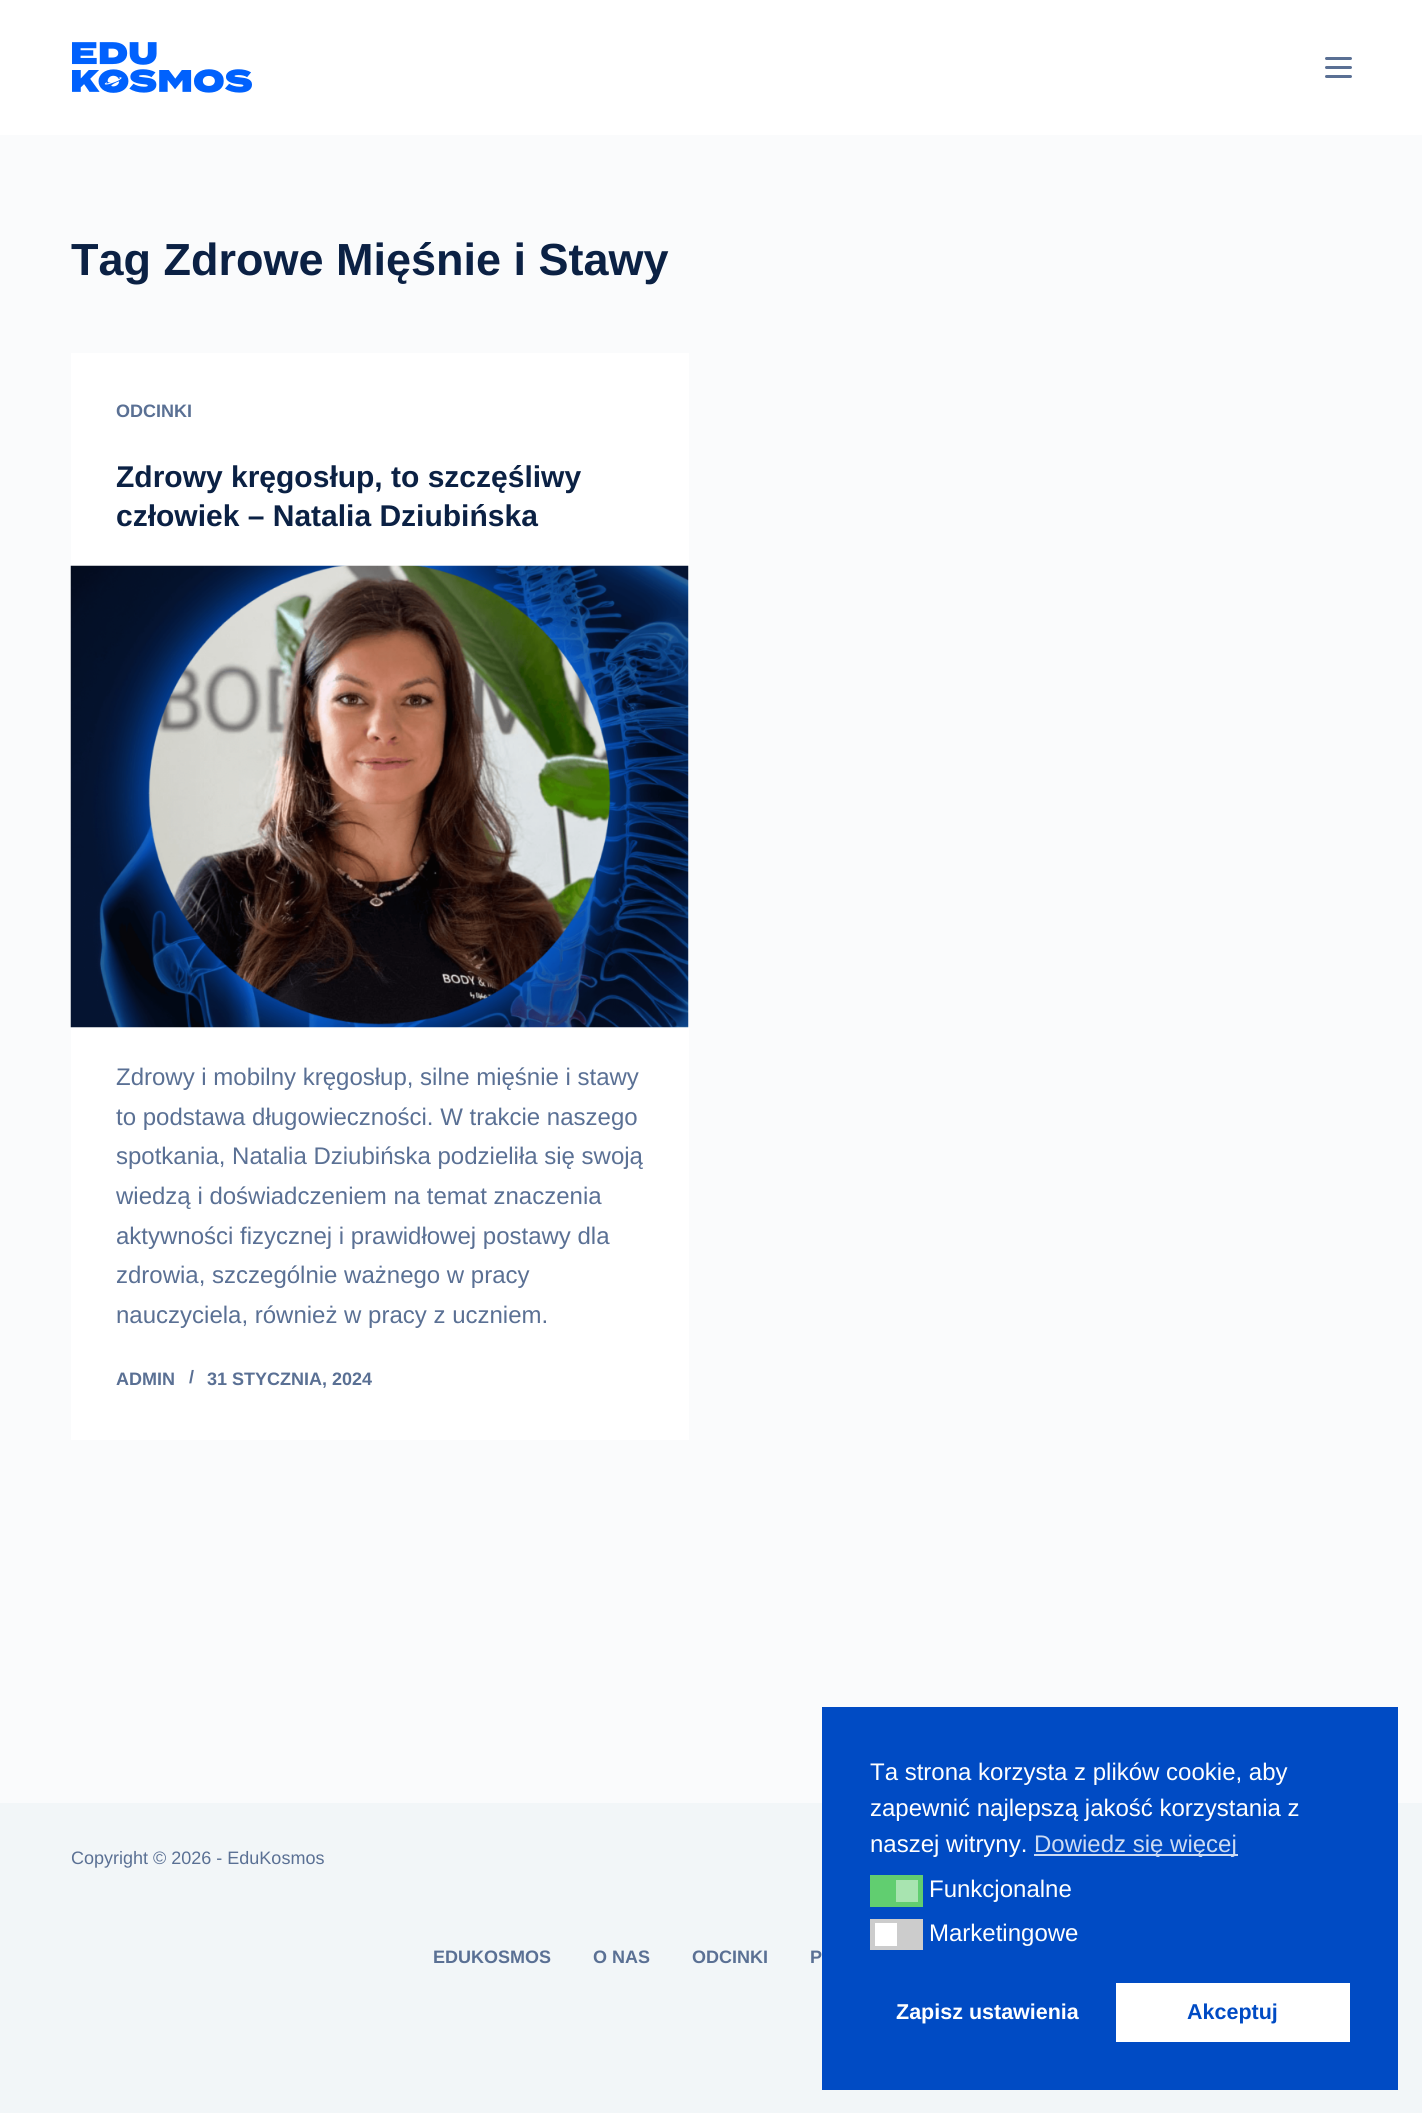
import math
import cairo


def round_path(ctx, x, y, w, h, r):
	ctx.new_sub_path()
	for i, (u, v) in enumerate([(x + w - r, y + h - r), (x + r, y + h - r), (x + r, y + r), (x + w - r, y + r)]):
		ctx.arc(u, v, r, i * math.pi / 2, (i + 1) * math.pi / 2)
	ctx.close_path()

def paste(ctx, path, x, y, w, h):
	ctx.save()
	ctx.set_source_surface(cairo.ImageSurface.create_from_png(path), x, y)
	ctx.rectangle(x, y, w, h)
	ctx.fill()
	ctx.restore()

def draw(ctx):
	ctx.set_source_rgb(0.98, 0.984, 0.988)
	ctx.paint()
	ctx.set_source_rgb(1, 1, 1)
	ctx.rectangle(0, 0, 1422, 135)
	ctx.fill()
	paste(ctx, 'media/1.png', 72, 42, 180, 51)
	ctx.set_source_rgb(0.353, 0.439, 0.58)
	round_path(ctx, 1325, 57, 27, 3, 1.5)
	ctx.fill()
	round_path(ctx, 1325, 66, 27, 3, 1.5)
	ctx.fill()
	round_path(ctx, 1325, 75, 27, 3, 1.5)
	ctx.fill()
	ctx.select_font_face('Liberation Sans', cairo.FONT_SLANT_NORMAL, cairo.FONT_WEIGHT_BOLD)
	ctx.set_font_size(45)
	ctx.set_source_rgb(0.043, 0.129, 0.267)
	ctx.move_to(71, 275)
	ctx.show_text('Tag Zdrowe Mięśnie i Stawy')
	ctx.set_source_rgb(1, 1, 1)
	ctx.rectangle(71, 353, 618, 1087)
	ctx.fill()
	ctx.set_font_size(18)
	ctx.set_source_rgb(0.353, 0.439, 0.58)
	ctx.move_to(116, 417)
	ctx.show_text('ODCINKI')
	ctx.set_font_size(30)
	ctx.set_source_rgb(0.043, 0.129, 0.267)
	ctx.move_to(116, 487)
	ctx.show_text('Zdrowy kręgosłup, to szczęśliwy')
	ctx.move_to(116, 526)
	ctx.show_text('człowiek – Natalia Dziubińska')
	paste(ctx, 'media/2.png', 70, 565, 619, 463)
	ctx.select_font_face('Liberation Sans')
	ctx.set_font_size(24)
	ctx.set_source_rgb(0.353, 0.439, 0.58)
	for x, y, s in [
		(116, 1085, 'Zdrowy i mobilny kręgosłup, silne mięśnie i stawy'),
		(116, 1125, 'to podstawa długowieczności. W trakcie naszego'),
		(116, 1164, 'spotkania, Natalia Dziubińska podzieliła się swoją'),
		(116, 1204, 'wiedzą i doświadczeniem na temat znaczenia'),
		(116, 1244, 'aktywności fizycznej i prawidłowej postawy dla'),
		(116, 1283, 'zdrowia, szczególnie ważnego w pracy'),
		(116, 1323, 'nauczyciela, również w pracy z uczniem.'),
	]:
		ctx.move_to(x, y)
		ctx.show_text(s)
	ctx.select_font_face('Liberation Sans', cairo.FONT_SLANT_NORMAL, cairo.FONT_WEIGHT_BOLD)
	ctx.set_font_size(18)
	for x, y, s in [
		(116, 1385, 'ADMIN'),
		(189, 1383, '/'),
		(207, 1385, '31 STYCZNIA, 2024'),
	]:
		ctx.move_to(x, y)
		ctx.show_text(s)
	ctx.set_source_rgb(0.949, 0.961, 0.969)
	ctx.rectangle(0, 1803, 1422, 310)
	ctx.fill()
	ctx.select_font_face('Liberation Sans')
	ctx.set_source_rgb(0.353, 0.439, 0.58)
	ctx.move_to(71, 1864)
	ctx.show_text('Copyright © 2026 - EduKosmos')
	ctx.select_font_face('Liberation Sans', cairo.FONT_SLANT_NORMAL, cairo.FONT_WEIGHT_BOLD)
	for x, y, s in [
		(433, 1963, 'EDUKOSMOS'),
		(593, 1963, 'O NAS'),
		(692, 1963, 'ODCINKI'),
		(810, 1963, 'P'),
	]:
		ctx.move_to(x, y)
		ctx.show_text(s)
	ctx.set_source_rgb(0, 0.294, 0.769)
	ctx.rectangle(822, 1707, 576, 383)
	ctx.fill()
	ctx.select_font_face('Liberation Sans')
	ctx.set_font_size(24)
	ctx.set_source_rgb(1, 1, 1)
	for x, y, s in [
		(870, 1780, 'Ta strona korzysta z plików cookie, aby'),
		(870, 1816, 'zapewnić najlepszą jakość korzystania z'),
		(870, 1852, 'naszej witryny.'),
	]:
		ctx.move_to(x, y)
		ctx.show_text(s)
	ctx.set_source_rgb(0.8, 0.859, 0.953)
	ctx.rectangle(1034, 1854, 204, 2)
	ctx.fill()
	ctx.move_to(1034, 1852)
	ctx.show_text('Dowiedz się więcej')
	ctx.set_source_rgb(0.38, 0.808, 0.439)
	ctx.rectangle(870, 1875, 53, 32)
	ctx.fill()
	ctx.set_source_rgb(0.659, 0.894, 0.69)
	ctx.rectangle(896, 1880, 22, 22)
	ctx.fill()
	ctx.set_source_rgb(1, 1, 1)
	ctx.move_to(929, 1897)
	ctx.show_text('Funkcjonalne')
	ctx.set_source_rgb(0.8, 0.8, 0.8)
	ctx.rectangle(870, 1919, 53, 31)
	ctx.fill()
	ctx.set_source_rgb(1, 1, 1)
	ctx.rectangle(875, 1923, 22, 23)
	ctx.fill()
	ctx.move_to(929, 1941)
	ctx.show_text('Marketingowe')
	ctx.select_font_face('Liberation Sans', cairo.FONT_SLANT_NORMAL, cairo.FONT_WEIGHT_BOLD)
	ctx.set_font_size(21.5)
	ctx.move_to(896, 2019)
	ctx.show_text('Zapisz ustawienia')
	ctx.rectangle(1116, 1983, 234, 59)
	ctx.fill()
	ctx.set_source_rgb(0, 0.294, 0.769)
	ctx.move_to(1187, 2019)
	ctx.show_text('Akceptuj')


surface = cairo.ImageSurface(cairo.FORMAT_RGB24, 1422, 2113)
ctx = cairo.Context(surface)
options = cairo.FontOptions()
options.set_hint_metrics(cairo.HINT_METRICS_OFF)
options.set_hint_style(cairo.HINT_STYLE_NONE)
ctx.set_font_options(options)
ctx.set_miter_limit(4)
draw(ctx)
surface.write_to_png('image.png')
